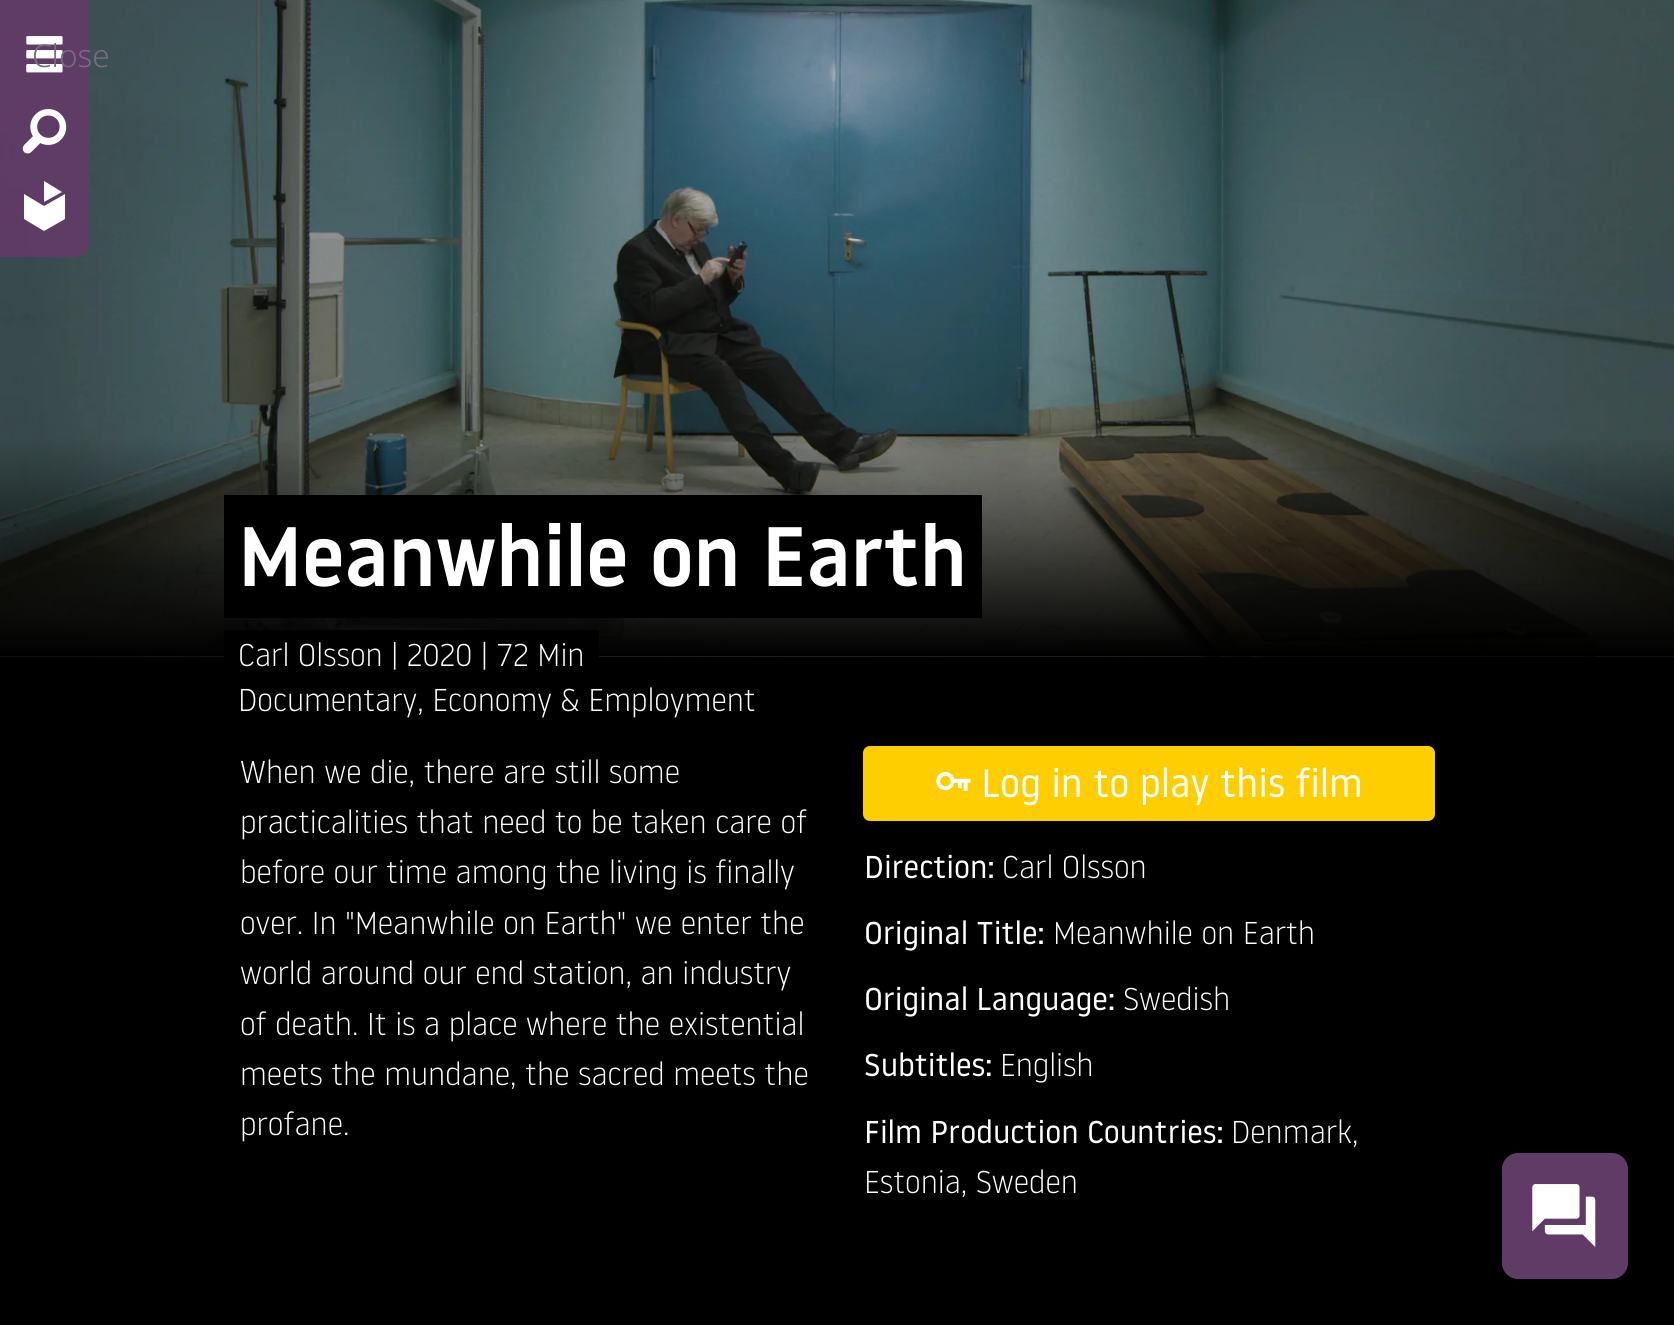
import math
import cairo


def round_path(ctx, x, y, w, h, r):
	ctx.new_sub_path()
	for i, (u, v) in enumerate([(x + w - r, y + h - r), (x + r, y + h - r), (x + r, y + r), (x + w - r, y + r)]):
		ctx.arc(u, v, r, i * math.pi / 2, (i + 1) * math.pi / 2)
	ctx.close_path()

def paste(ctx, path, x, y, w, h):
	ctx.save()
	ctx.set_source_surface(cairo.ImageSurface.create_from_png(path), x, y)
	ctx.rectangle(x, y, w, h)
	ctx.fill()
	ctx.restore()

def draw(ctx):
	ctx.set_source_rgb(0, 0, 0)
	ctx.paint()
	paste(ctx, 'media/4.png', 0, 0, 1674, 657)
	ctx.set_source_rgba(0.376, 0.231, 0.4, 0.95)
	ctx.new_path()
	ctx.move_to(0, 0)
	ctx.line_to(89, 0)
	ctx.line_to(89, 243)
	ctx.curve_to(89, 250.5, 82.5, 257, 75, 257)
	ctx.line_to(0, 257)
	ctx.close_path()
	ctx.fill()
	paste(ctx, 'media/1.png', 26, 36, 37, 37)
	paste(ctx, 'media/2.png', 22, 109, 45, 45)
	ctx.set_source_rgb(1, 1, 1)
	ctx.new_path()
	ctx.move_to(44, 206)
	ctx.line_to(24, 194)
	ctx.line_to(24, 219)
	ctx.line_to(44, 231)
	ctx.line_to(65, 219)
	ctx.line_to(65, 194)
	ctx.close_path()
	ctx.move_to(44, 181)
	ctx.line_to(44, 202)
	ctx.line_to(62, 192)
	ctx.close_path()
	ctx.fill()
	ctx.select_font_face('Noto Sans Light')
	ctx.set_font_size(31.5)
	ctx.set_source_rgb(0.475, 0.42, 0.51)
	ctx.move_to(32, 67)
	ctx.show_text('Close')
	ctx.set_source_rgb(0.376, 0.231, 0.4)
	round_path(ctx, 1503, 1154, 124, 124, 15)
	ctx.fill_preserve()
	ctx.stroke()
	paste(ctx, 'media/3.png', 1532, 1184, 64, 63)
	ctx.set_source_rgb(0, 0, 0)
	ctx.rectangle(224, 495, 758, 123)
	ctx.fill()
	ctx.select_font_face('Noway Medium')
	ctx.set_font_size(84)
	ctx.set_source_rgb(1, 1, 1)
	ctx.move_to(238, 586)
	ctx.show_text('Meanwhile on Earth')
	ctx.set_source_rgb(0, 0, 0)
	ctx.rectangle(224, 630, 375, 27)
	ctx.fill()
	ctx.select_font_face('Noway Light')
	ctx.set_font_size(31.5)
	ctx.set_source_rgb(1, 1, 1)
	for x, y, s in [
		(238, 666, 'Carl Olsson | 2020 | 72 Min'),
		(238, 711, 'Documentary, Economy & Employment'),
		(240, 783, 'When we die, there are still some'),
		(240, 833, 'practicalities that need to be taken care of'),
		(240, 883, 'before our time among the living is finally'),
		(240, 934, 'over. In "Meanwhile on Earth" we enter the'),
		(240, 984, 'world around our end station, an industry'),
		(240, 1035, 'of death. It is a place where the existential'),
		(240, 1085, 'meets the mundane, the sacred meets the'),
		(240, 1135, 'profane.'),
	]:
		ctx.move_to(x, y)
		ctx.show_text(s)
	ctx.set_source_rgb(0.996, 0.808, 0)
	round_path(ctx, 863, 746, 572, 75, 7)
	ctx.fill()
	paste(ctx, 'media/5.png', 936, 771, 35, 20)
	ctx.select_font_face('Noway')
	ctx.set_font_size(39.4)
	ctx.set_source_rgb(1, 1, 1)
	ctx.move_to(981, 797)
	ctx.show_text('Log in to play this film')
	ctx.set_font_size(31.5)
	ctx.move_to(864, 878)
	ctx.show_text('Direction:')
	ctx.select_font_face('Noway Light')
	ctx.move_to(1002, 878)
	ctx.show_text('Carl Olsson')
	ctx.select_font_face('Noway')
	ctx.move_to(864, 944)
	ctx.show_text('Original Title:')
	ctx.select_font_face('Noway Light')
	ctx.move_to(1053, 944)
	ctx.show_text('Meanwhile on Earth')
	ctx.select_font_face('Noway')
	ctx.move_to(864, 1010)
	ctx.show_text('Original Language:')
	ctx.select_font_face('Noway Light')
	ctx.move_to(1123, 1010)
	ctx.show_text('Swedish')
	ctx.select_font_face('Noway')
	ctx.move_to(864, 1076)
	ctx.show_text('Subtitles:')
	ctx.select_font_face('Noway Light')
	ctx.move_to(1000, 1076)
	ctx.show_text('English')
	ctx.select_font_face('Noway')
	ctx.move_to(864, 1143)
	ctx.show_text('Film Production Countries:')
	ctx.select_font_face('Noway Light')
	ctx.move_to(1231, 1143)
	ctx.show_text('Denmark,')
	ctx.move_to(864, 1193)
	ctx.show_text('Estonia, Sweden')


surface = cairo.ImageSurface(cairo.FORMAT_RGB24, 1674, 1325)
ctx = cairo.Context(surface)
options = cairo.FontOptions()
options.set_hint_metrics(cairo.HINT_METRICS_OFF)
options.set_hint_style(cairo.HINT_STYLE_NONE)
ctx.set_font_options(options)
ctx.set_miter_limit(4)
draw(ctx)
surface.write_to_png('image.png')
